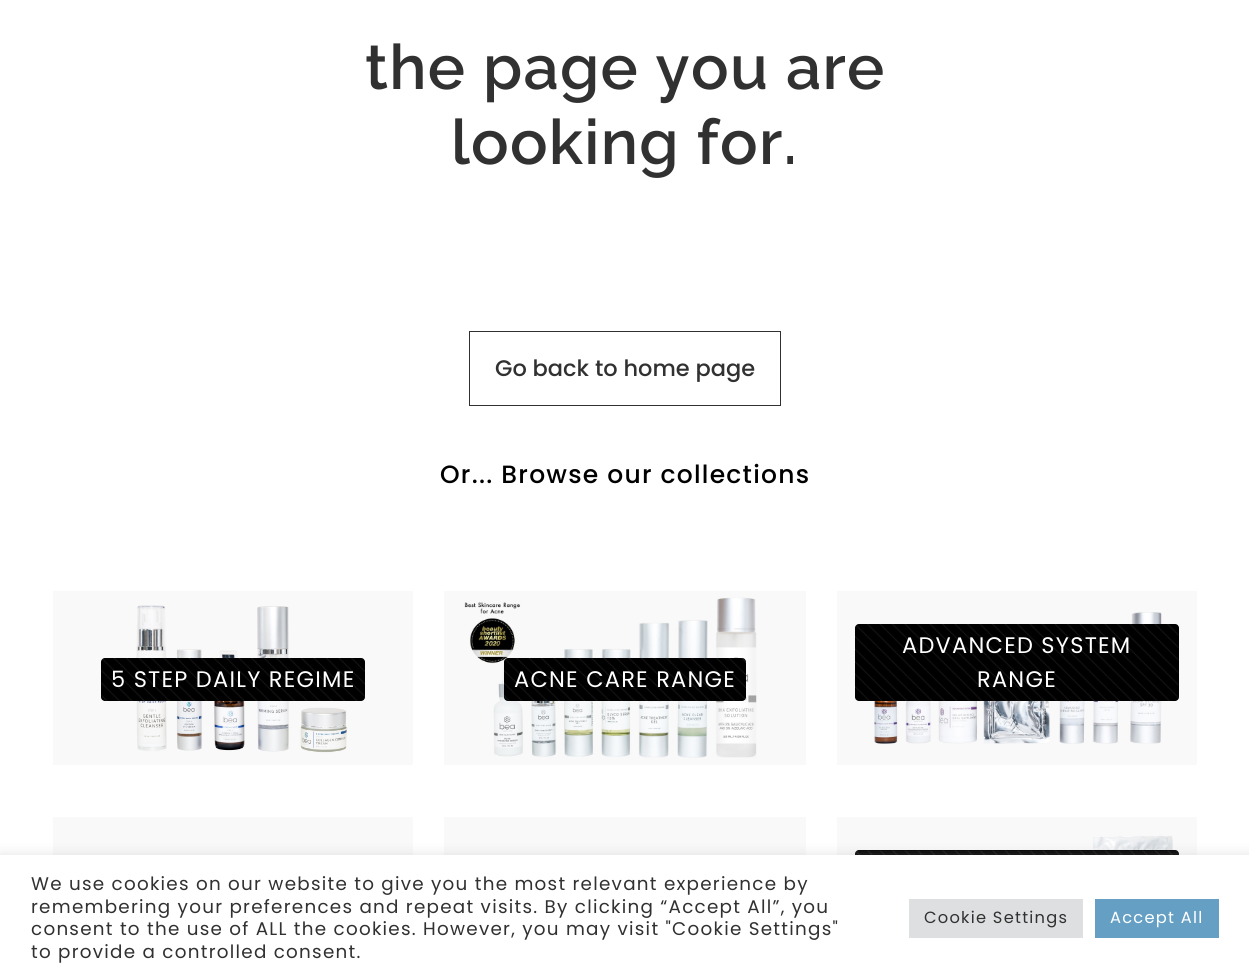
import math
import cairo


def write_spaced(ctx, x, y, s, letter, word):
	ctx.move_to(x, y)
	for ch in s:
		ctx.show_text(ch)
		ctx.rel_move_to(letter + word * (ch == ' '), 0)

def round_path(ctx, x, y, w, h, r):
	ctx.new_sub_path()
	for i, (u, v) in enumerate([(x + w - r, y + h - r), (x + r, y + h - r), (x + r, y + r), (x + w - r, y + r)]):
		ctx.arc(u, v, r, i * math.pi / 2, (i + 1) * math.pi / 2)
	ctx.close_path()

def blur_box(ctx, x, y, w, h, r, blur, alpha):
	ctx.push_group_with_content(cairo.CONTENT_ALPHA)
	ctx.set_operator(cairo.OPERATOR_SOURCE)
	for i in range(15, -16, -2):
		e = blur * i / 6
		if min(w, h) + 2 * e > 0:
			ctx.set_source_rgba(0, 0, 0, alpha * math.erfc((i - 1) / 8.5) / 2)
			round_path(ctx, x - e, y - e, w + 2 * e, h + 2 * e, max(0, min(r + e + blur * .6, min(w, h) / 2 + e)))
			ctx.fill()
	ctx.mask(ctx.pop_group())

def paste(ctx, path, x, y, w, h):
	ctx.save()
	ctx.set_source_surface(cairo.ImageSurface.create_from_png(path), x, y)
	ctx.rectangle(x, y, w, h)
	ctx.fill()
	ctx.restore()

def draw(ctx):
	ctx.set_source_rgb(1, 1, 1)
	ctx.paint()
	ctx.select_font_face('Raleway SemiBold')
	ctx.set_font_size(62.5)
	ctx.set_source_rgb(0.192, 0.192, 0.192)
	write_spaced(ctx, 365, 89, 'the page you are', 1.25, 0)
	write_spaced(ctx, 451, 164, 'looking for.', 1.25, 0)
	ctx.rectangle(469.5, 331.5, 311, 74)
	ctx.set_line_width(1)
	ctx.stroke()
	ctx.select_font_face('Poppins Medium')
	ctx.set_font_size(22.5)
	ctx.move_to(495, 376)
	ctx.show_text('Go back to home page')
	ctx.set_font_size(25)
	ctx.set_source_rgb(0, 0, 0)
	write_spaced(ctx, 440, 483, 'Or... Browse our collections', 1.25, 0)
	paste(ctx, 'media/1.png', 53, 591, 360, 174)
	round_path(ctx, 101, 658, 264, 43, 4)
	ctx.fill()
	paste(ctx, 'media/2.png', 101, 658, 264, 43)
	ctx.select_font_face('Poppins')
	ctx.set_font_size(22.5)
	ctx.set_source_rgb(1, 1, 1)
	write_spaced(ctx, 111, 687, '5 STEP DAILY REGIME', 1.25, 0)
	paste(ctx, 'media/3.png', 444, 591, 362, 174)
	ctx.set_source_rgb(0, 0, 0)
	round_path(ctx, 504, 658, 242, 43, 4)
	ctx.fill()
	paste(ctx, 'media/4.png', 504, 658, 242, 43)
	ctx.set_source_rgb(1, 1, 1)
	write_spaced(ctx, 514, 687, 'ACNE CARE RANGE', 1.25, 0)
	paste(ctx, 'media/5.png', 837, 591, 360, 174)
	ctx.set_source_rgb(0, 0, 0)
	round_path(ctx, 855, 624, 324, 77, 4)
	ctx.fill()
	paste(ctx, 'media/6.png', 855, 624, 324, 77)
	ctx.set_source_rgb(1, 1, 1)
	write_spaced(ctx, 902, 653, 'ADVANCED SYSTEM', 1.25, 0)
	write_spaced(ctx, 977, 687, 'RANGE', 1.25, 0)
	paste(ctx, 'media/7.png', 53, 817, 360, 38)
	paste(ctx, 'media/8.png', 444, 817, 362, 38)
	paste(ctx, 'media/9.png', 837, 817, 360, 38)
	ctx.set_source_rgb(0, 0, 0)
	round_path(ctx, 855, 850, 324, 78, 4)
	ctx.fill()
	paste(ctx, 'media/10.png', 856, 850, 317, 5)
	ctx.set_source_rgb(0.675, 0.671, 0.671)
	blur_box(ctx, 0, 854, 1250, 125, 0, 6, 0.3)
	ctx.set_source_rgb(1, 1, 1)
	ctx.rectangle(0, 855, 1249, 124)
	ctx.fill()
	ctx.set_font_size(18.35)
	ctx.set_source_rgb(0.192, 0.192, 0.192)
	for x, y, s in [
		(31, 890, 'We use cookies on our website to give you the most relevant experience by'),
		(31, 913, 'remembering your preferences and repeat visits. By clicking “Accept All”, you'),
		(31, 935, 'consent to the use of ALL the cookies. However, you may visit "Cookie Settings"'),
		(31, 958, 'to provide a controlled consent.'),
	]:
		write_spaced(ctx, x, y, s, 1.25, 0)
	ctx.set_source_rgb(0.871, 0.875, 0.878)
	ctx.rectangle(909, 899, 174, 39)
	ctx.fill()
	ctx.set_font_size(16.25)
	ctx.set_source_rgb(0.192, 0.192, 0.192)
	write_spaced(ctx, 924, 923, 'Cookie Settings', 1.25, 0)
	ctx.set_source_rgb(0.396, 0.627, 0.769)
	ctx.rectangle(1095, 899, 124, 39)
	ctx.fill()
	ctx.set_source_rgb(1, 1, 1)
	write_spaced(ctx, 1110, 923, 'Accept All', 1.25, 0)


surface = cairo.ImageSurface(cairo.FORMAT_RGB24, 1249, 979)
ctx = cairo.Context(surface)
options = cairo.FontOptions()
options.set_hint_metrics(cairo.HINT_METRICS_OFF)
options.set_hint_style(cairo.HINT_STYLE_NONE)
ctx.set_font_options(options)
ctx.set_miter_limit(4)
draw(ctx)
surface.write_to_png('image.png')
